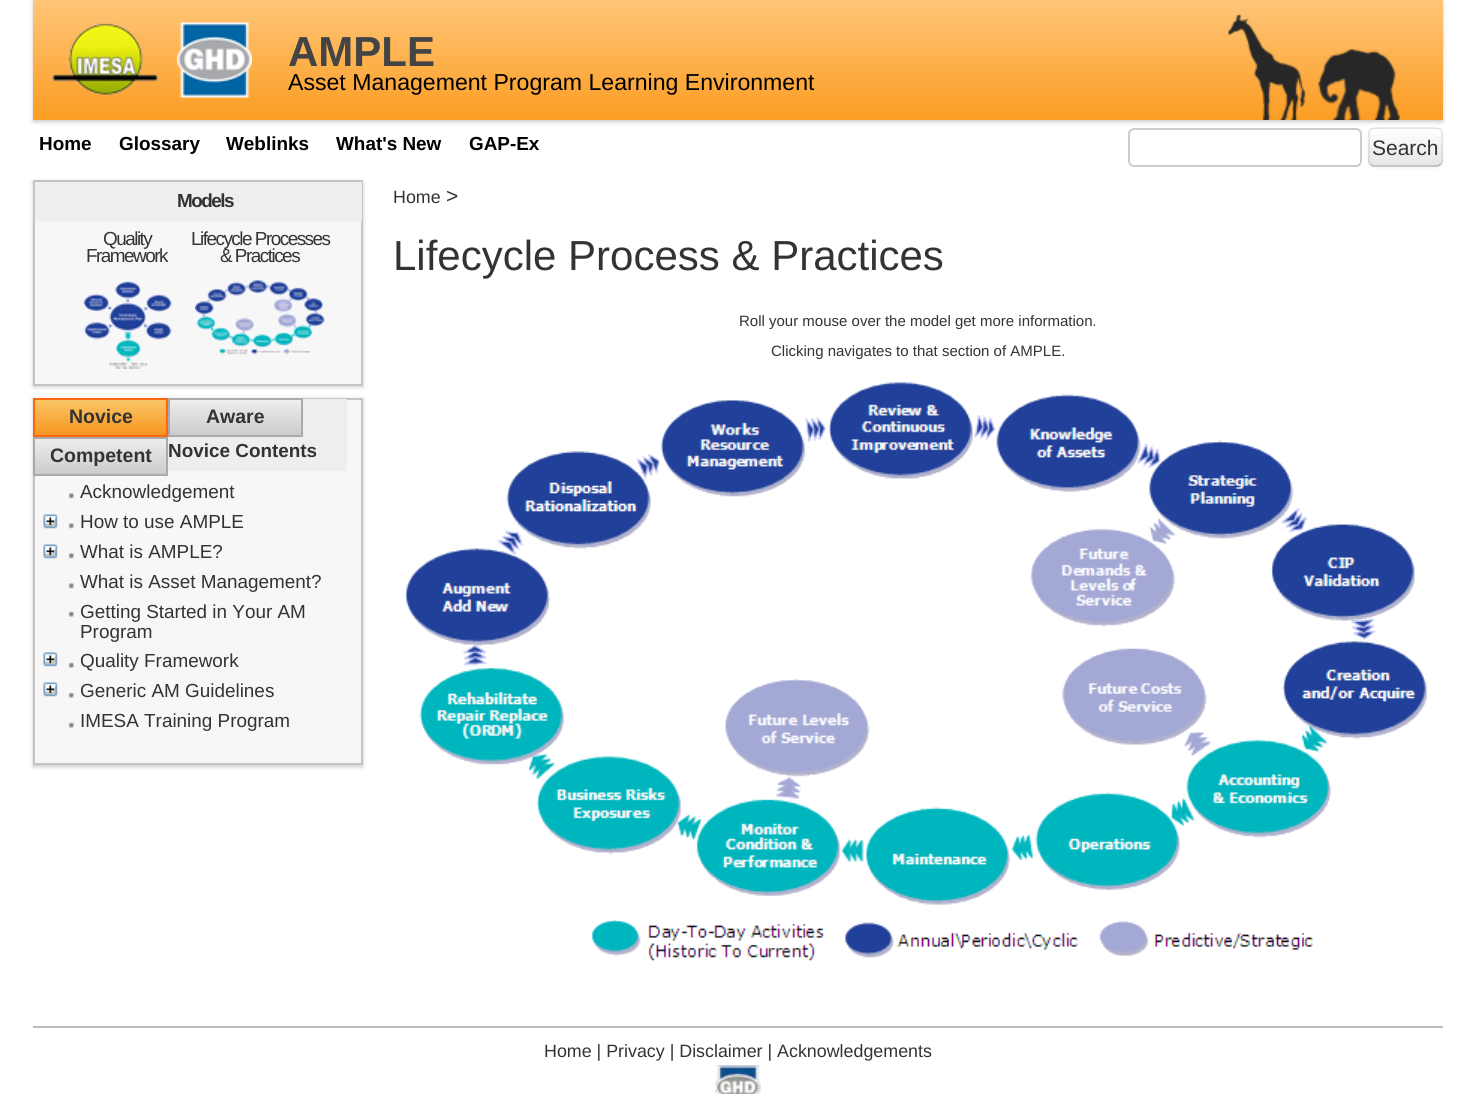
import math
import cairo


def write_spaced(ctx, x, y, s, letter, word):
	ctx.move_to(x, y)
	for ch in s:
		ctx.show_text(ch)
		ctx.rel_move_to(letter + word * (ch == ' '), 0)

def round_path(ctx, x, y, w, h, r):
	ctx.new_sub_path()
	for i, (u, v) in enumerate([(x + w - r, y + h - r), (x + r, y + h - r), (x + r, y + r), (x + w - r, y + r)]):
		ctx.arc(u, v, r, i * math.pi / 2, (i + 1) * math.pi / 2)
	ctx.close_path()

def blur_box(ctx, x, y, w, h, r, blur, alpha):
	ctx.push_group_with_content(cairo.CONTENT_ALPHA)
	ctx.set_operator(cairo.OPERATOR_SOURCE)
	for i in range(15, -16, -2):
		e = blur * i / 6
		if min(w, h) + 2 * e > 0:
			ctx.set_source_rgba(0, 0, 0, alpha * math.erfc((i - 1) / 8.5) / 2)
			round_path(ctx, x - e, y - e, w + 2 * e, h + 2 * e, max(0, min(r + e + blur * .6, min(w, h) / 2 + e)))
			ctx.fill()
	ctx.mask(ctx.pop_group())

def paste(ctx, path, x, y, w, h):
	ctx.save()
	ctx.set_source_surface(cairo.ImageSurface.create_from_png(path), x, y)
	ctx.rectangle(x, y, w, h)
	ctx.fill()
	ctx.restore()

def draw(ctx):
	ctx.set_source_rgb(1, 1, 1)
	ctx.paint()
	ctx.set_source_rgb(0.8, 0.8, 0.8)
	blur_box(ctx, 33, 2, 1410, 120, 0, 2, 1)
	gradient = cairo.LinearGradient(738, 0, 738, 120)
	gradient.add_color_stop_rgba(0, 1, 0.773, 0.471, 1)
	gradient.add_color_stop_rgba(1, 0.984, 0.616, 0.137, 1)
	ctx.set_source(gradient)
	ctx.rectangle(33, 0, 1410, 120)
	ctx.fill()
	paste(ctx, 'media/1.png', 52, 23, 106, 73)
	paste(ctx, 'media/2.png', 177, 22, 75, 76)
	ctx.select_font_face('Liberation Sans', cairo.FONT_SLANT_NORMAL, cairo.FONT_WEIGHT_BOLD)
	ctx.set_font_size(42)
	ctx.set_source_rgb(0.267, 0.267, 0.267)
	ctx.move_to(288, 66)
	ctx.show_text('AMPLE')
	paste(ctx, 'media/3.png', 1228, 14, 172, 106)
	ctx.select_font_face('Liberation Sans')
	ctx.set_font_size(23.1)
	ctx.set_source_rgb(0, 0, 0)
	ctx.move_to(288, 90)
	ctx.show_text('Asset Management Program Learning Environment')
	ctx.select_font_face('Liberation Sans', cairo.FONT_SLANT_NORMAL, cairo.FONT_WEIGHT_BOLD)
	ctx.set_font_size(18.9)
	for x, y, s in [
		(39, 150, 'Home'),
		(119, 150, 'Glossary'),
		(226, 150, 'Weblinks'),
		(336, 150, 'What\'s New'),
		(469, 150, 'GAP-Ex'),
	]:
		ctx.move_to(x, y)
		ctx.show_text(s)
	ctx.set_source_rgb(0.925, 0.925, 0.925)
	ctx.new_path()
	ctx.move_to(1134, 130)
	ctx.line_to(1356, 130)
	ctx.curve_to(1362, 130, 1360, 142, 1360, 144)
	ctx.line_to(1360, 163)
	ctx.curve_to(1361, 162, 1361, 161, 1361, 160)
	ctx.line_to(1361, 134)
	ctx.curve_to(1361, 131, 1359, 129, 1356, 129)
	ctx.line_to(1135, 129)
	ctx.curve_to(1132, 129, 1130, 131, 1130, 134)
	ctx.line_to(1130, 135)
	ctx.curve_to(1130, 133, 1132, 130, 1134, 130)
	ctx.close_path()
	ctx.fill()
	round_path(ctx, 1129, 129, 232, 37, 5)
	ctx.set_source_rgb(0.8, 0.8, 0.8)
	ctx.stroke()
	ctx.set_source_rgb(0, 0, 0)
	blur_box(ctx, 1368, 129, 75, 39, 6, 1.5, 0.05)
	ctx.set_source_rgb(0.961, 0.961, 0.961)
	round_path(ctx, 1368, 128, 75, 39, 6)
	ctx.fill()
	ctx.save()
	round_path(ctx, 1368, 128, 75, 39, 6)
	ctx.clip()
	gradient = cairo.LinearGradient(1406, 129, 1406, 165)
	gradient.add_color_stop_rgba(0, 1, 1, 1, 1)
	gradient.add_color_stop_rgba(1, 0.902, 0.902, 0.902, 1)
	ctx.set_source(gradient)
	ctx.rectangle(1368, 129, 75, 36)
	ctx.fill()
	ctx.restore()
	ctx.new_path()
	ctx.move_to(1440.5, 164)
	ctx.curve_to(1439.5, 165, 1438.5, 166, 1437, 166)
	ctx.line_to(1374, 166)
	ctx.curve_to(1372.5, 166, 1371.5, 165, 1370.5, 164)
	ctx.set_source_rgb(0.702, 0.702, 0.702)
	ctx.set_line_width(1.5)
	ctx.stroke()
	ctx.new_path()
	ctx.move_to(1370.5, 164)
	ctx.curve_to(1368, 162, 1369, 158.5, 1369, 156)
	ctx.line_to(1369, 147)
	ctx.curve_to(1369, 128, 1365.5, 128, 1384.5, 128)
	ctx.line_to(1426.5, 128)
	ctx.curve_to(1445.5, 128, 1442, 128, 1442, 147)
	ctx.line_to(1442, 156)
	ctx.curve_to(1442, 158.5, 1443, 162, 1440.5, 164)
	ctx.set_source_rgba(0, 0, 0, 0.1)
	ctx.stroke()
	ctx.select_font_face('Liberation Sans')
	ctx.set_font_size(21)
	ctx.set_source_rgb(0.2, 0.2, 0.2)
	ctx.move_to(1372, 155)
	ctx.show_text('Search')
	ctx.set_source_rgb(0.8, 0.8, 0.8)
	blur_box(ctx, 33, 182, 330, 205, 0, 2, 1)
	ctx.set_source_rgb(0.965, 0.965, 0.965)
	ctx.rectangle(35, 221, 326, 163)
	ctx.fill()
	ctx.rectangle(34, 181, 328, 204)
	ctx.set_source_rgb(0.769, 0.769, 0.769)
	ctx.set_line_width(2)
	ctx.stroke()
	ctx.set_source_rgb(0.933, 0.933, 0.933)
	ctx.rectangle(35, 182, 327, 39)
	ctx.fill()
	ctx.select_font_face('Liberation Sans', cairo.FONT_SLANT_NORMAL, cairo.FONT_WEIGHT_BOLD)
	ctx.set_font_size(18.9)
	ctx.set_source_rgb(0.2, 0.2, 0.2)
	write_spaced(ctx, 177, 207, 'Models', -1.5, 0)
	ctx.select_font_face('Liberation Sans')
	write_spaced(ctx, 103, 245, 'Quality', -1.5, 0)
	write_spaced(ctx, 86, 262, 'Framework', -1.5, 0)
	paste(ctx, 'media/4.png', 83, 281, 89, 88)
	write_spaced(ctx, 191, 245, 'Lifecycle Processes', -1.5, 0)
	write_spaced(ctx, 220, 262, '& Practices', -1.5, 0)
	paste(ctx, 'media/5.png', 195, 280, 130, 75)
	ctx.set_source_rgb(0.8, 0.8, 0.8)
	blur_box(ctx, 33, 399, 330, 368, 0, 2, 1)
	ctx.set_source_rgb(0.965, 0.965, 0.965)
	ctx.rectangle(34, 399, 328, 365)
	ctx.fill_preserve()
	ctx.set_source_rgb(0.769, 0.769, 0.769)
	ctx.stroke()
	gradient = cairo.LinearGradient(101, 399, 101, 435)
	gradient.add_color_stop_rgba(0, 0.976, 0.776, 0.404, 1)
	gradient.add_color_stop_rgba(1, 0.969, 0.588, 0.129, 1)
	ctx.set_source(gradient)
	ctx.rectangle(35, 400, 131, 35)
	ctx.fill()
	ctx.rectangle(34, 399, 133, 37)
	ctx.set_source_rgb(1, 0.404, 0.059)
	ctx.stroke()
	ctx.select_font_face('Liberation Sans', cairo.FONT_SLANT_NORMAL, cairo.FONT_WEIGHT_BOLD)
	ctx.set_font_size(19.5)
	ctx.set_source_rgb(0.2, 0.2, 0.2)
	ctx.move_to(69, 423)
	ctx.show_text('Novice')
	ctx.set_source_rgb(0.933, 0.933, 0.933)
	ctx.rectangle(168, 399, 179, 72)
	ctx.fill()
	gradient = cairo.LinearGradient(236, 399, 236, 435)
	gradient.add_color_stop_rgba(0, 0.933, 0.933, 0.933, 1)
	gradient.add_color_stop_rgba(1, 0.8, 0.8, 0.8, 1)
	ctx.set_source(gradient)
	ctx.rectangle(170, 402, 131, 33)
	ctx.fill()
	ctx.rectangle(169, 399, 133, 37)
	ctx.set_source_rgb(0.667, 0.667, 0.667)
	ctx.stroke()
	ctx.set_source_rgb(0.2, 0.2, 0.2)
	ctx.move_to(206, 423)
	ctx.show_text('Aware')
	gradient = cairo.LinearGradient(101, 438, 101, 474)
	gradient.add_color_stop_rgba(0, 0.933, 0.933, 0.933, 1)
	gradient.add_color_stop_rgba(1, 0.8, 0.8, 0.8, 1)
	ctx.set_source(gradient)
	ctx.rectangle(35, 439, 131, 35)
	ctx.fill()
	ctx.rectangle(34, 438, 133, 37)
	ctx.set_source_rgb(0.667, 0.667, 0.667)
	ctx.stroke()
	ctx.set_source_rgb(0.2, 0.2, 0.2)
	ctx.move_to(50, 462)
	ctx.show_text('Competent')
	ctx.set_font_size(18.9)
	ctx.move_to(168, 457)
	ctx.show_text('Novice Contents')
	paste(ctx, 'media/6.png', 68, 493, 6, 6)
	ctx.select_font_face('Liberation Sans')
	ctx.move_to(80, 498)
	ctx.show_text('Acknowledgement')
	paste(ctx, 'media/7.png', 43, 514, 15, 15)
	paste(ctx, 'media/6.png', 68, 523, 6, 6)
	ctx.move_to(80, 528)
	ctx.show_text('How to use AMPLE')
	paste(ctx, 'media/7.png', 43, 544, 15, 15)
	paste(ctx, 'media/6.png', 68, 553, 6, 6)
	ctx.move_to(80, 558)
	ctx.show_text('What is AMPLE?')
	paste(ctx, 'media/6.png', 68, 583, 6, 6)
	ctx.move_to(80, 588)
	ctx.show_text('What is Asset Management?')
	paste(ctx, 'media/8.png', 68, 611, 6, 6)
	ctx.move_to(80, 618)
	ctx.show_text('Getting Started in Your AM')
	ctx.move_to(80, 638)
	ctx.show_text('Program')
	paste(ctx, 'media/7.png', 43, 652, 15, 15)
	paste(ctx, 'media/8.png', 68, 662, 6, 6)
	ctx.move_to(80, 667)
	ctx.show_text('Quality Framework')
	paste(ctx, 'media/7.png', 43, 682, 15, 15)
	paste(ctx, 'media/8.png', 68, 692, 6, 6)
	ctx.move_to(80, 697)
	ctx.show_text('Generic AM Guidelines')
	paste(ctx, 'media/8.png', 68, 722, 6, 6)
	ctx.move_to(80, 727)
	ctx.show_text('IMESA Training Program')
	ctx.set_font_size(17.85)
	ctx.move_to(393, 203)
	ctx.show_text('Home')
	ctx.set_font_size(21)
	ctx.move_to(446, 203)
	ctx.show_text('>')
	ctx.set_font_size(42)
	ctx.move_to(393, 270)
	ctx.show_text('Lifecycle Process & Practices')
	ctx.set_font_size(15)
	ctx.move_to(739, 326)
	ctx.show_text('Roll your mouse over the model get more information.')
	ctx.move_to(771, 356)
	ctx.show_text('Clicking navigates to that section of AMPLE.')
	paste(ctx, 'media/9.png', 405, 382, 1022, 579)
	ctx.set_source_rgb(0.733, 0.733, 0.733)
	ctx.rectangle(33, 1026, 1410, 2)
	ctx.fill()
	ctx.set_font_size(17.85)
	ctx.set_source_rgb(0.2, 0.2, 0.2)
	ctx.move_to(544, 1057)
	ctx.show_text('Home | Privacy | Disclaimer | Acknowledgements')
	paste(ctx, 'media/10.png', 715, 1065, 46, 29)


surface = cairo.ImageSurface(cairo.FORMAT_RGB24, 1475, 1094)
ctx = cairo.Context(surface)
options = cairo.FontOptions()
options.set_hint_metrics(cairo.HINT_METRICS_OFF)
options.set_hint_style(cairo.HINT_STYLE_NONE)
ctx.set_font_options(options)
ctx.set_miter_limit(4)
draw(ctx)
surface.write_to_png('image.png')
